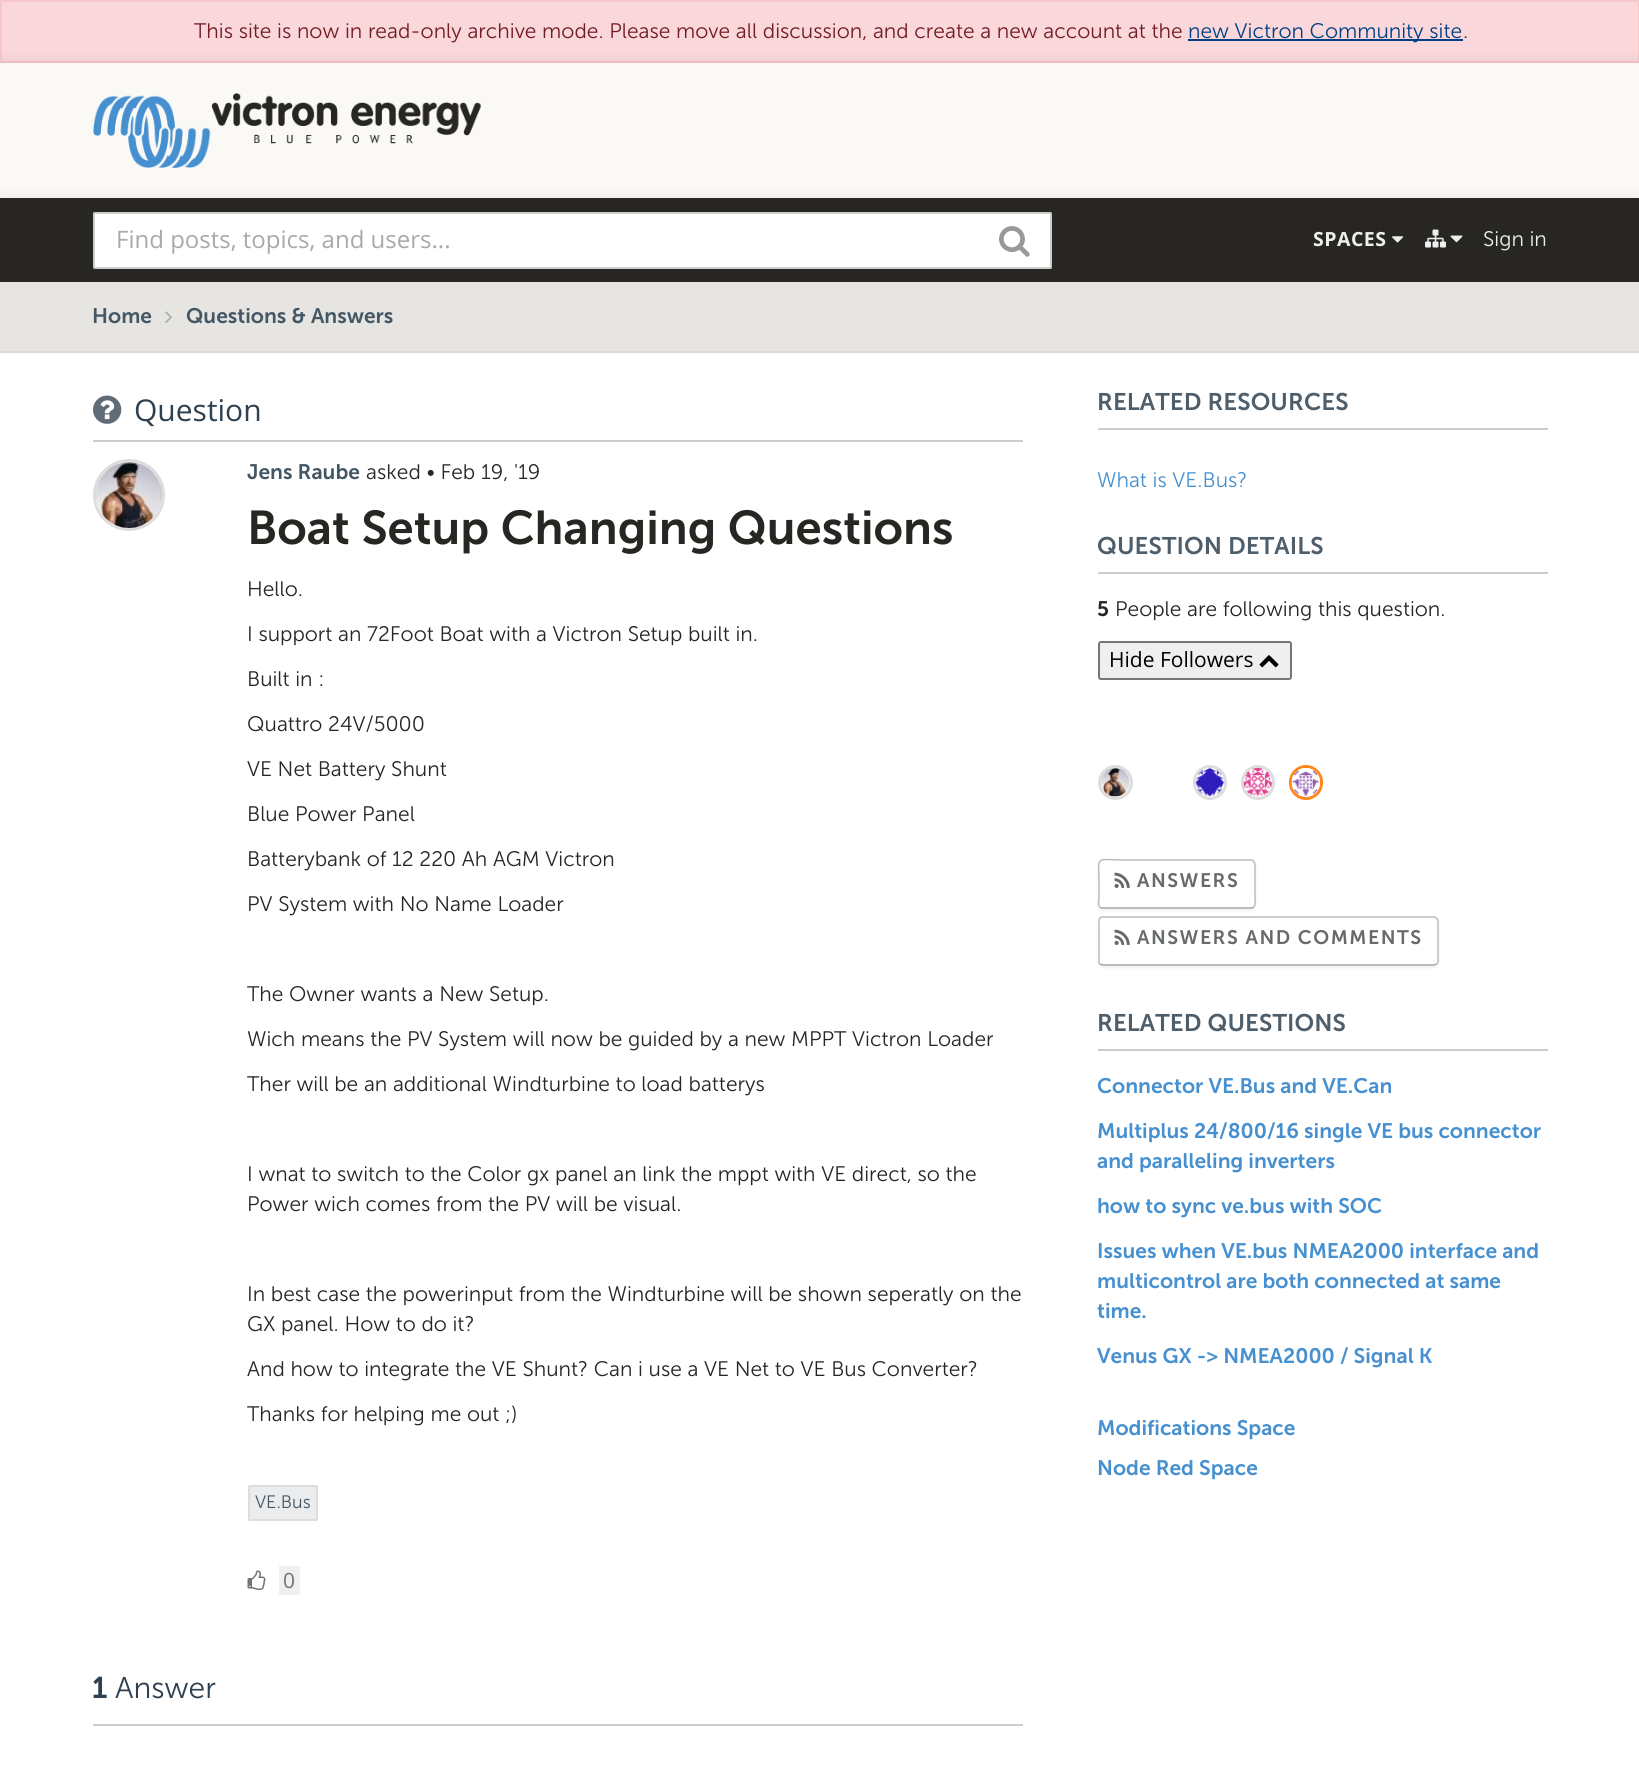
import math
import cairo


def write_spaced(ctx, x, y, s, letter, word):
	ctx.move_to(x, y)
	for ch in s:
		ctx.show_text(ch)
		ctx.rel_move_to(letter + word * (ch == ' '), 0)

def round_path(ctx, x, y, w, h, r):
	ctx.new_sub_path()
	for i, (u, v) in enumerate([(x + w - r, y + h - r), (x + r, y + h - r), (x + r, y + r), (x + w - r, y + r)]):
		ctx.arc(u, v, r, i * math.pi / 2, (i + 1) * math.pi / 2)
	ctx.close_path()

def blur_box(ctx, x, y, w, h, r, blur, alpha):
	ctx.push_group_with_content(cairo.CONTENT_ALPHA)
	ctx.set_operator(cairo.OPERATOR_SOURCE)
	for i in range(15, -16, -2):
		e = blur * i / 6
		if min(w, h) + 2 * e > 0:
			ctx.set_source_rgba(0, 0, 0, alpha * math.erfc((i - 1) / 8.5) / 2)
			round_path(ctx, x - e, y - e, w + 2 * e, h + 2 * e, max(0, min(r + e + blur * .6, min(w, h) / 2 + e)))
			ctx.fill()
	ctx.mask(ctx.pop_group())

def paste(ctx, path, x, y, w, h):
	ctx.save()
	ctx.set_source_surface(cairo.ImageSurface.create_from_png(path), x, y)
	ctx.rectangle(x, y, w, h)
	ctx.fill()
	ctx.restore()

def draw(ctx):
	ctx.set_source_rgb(1, 1, 1)
	ctx.paint()
	ctx.set_source_rgb(0.973, 0.843, 0.855)
	ctx.rectangle(1, 1, 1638, 61)
	ctx.fill_preserve()
	ctx.set_source_rgb(0.961, 0.776, 0.796)
	ctx.stroke()
	ctx.set_source_rgb(0, 0, 0)
	blur_box(ctx, 0, 65, 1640, 135, 0, 7.5, 0.1)
	ctx.select_font_face('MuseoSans')
	ctx.set_font_size(21)
	ctx.set_source_rgb(0.447, 0.11, 0.141)
	ctx.move_to(194, 38)
	ctx.show_text('This site is now in read-only archive mode. Please move all discussion, and create a new account at the')
	ctx.set_source_rgb(0, 0.251, 0.522)
	ctx.rectangle(1188, 39, 275, 2)
	ctx.fill()
	ctx.move_to(1188, 38)
	ctx.show_text('new Victron Community site')
	ctx.set_source_rgb(0.447, 0.11, 0.141)
	ctx.move_to(1463, 38)
	ctx.show_text('.')
	ctx.set_source_rgb(0.98, 0.976, 0.961)
	ctx.rectangle(0, 63, 1639, 135)
	ctx.fill()
	paste(ctx, 'media/1.png', 93, 93, 388, 75)
	ctx.set_source_rgb(0, 0, 0)
	blur_box(ctx, 0, 200, 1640, 84, 0, 7.5, 0.1)
	ctx.set_source_rgb(0.153, 0.149, 0.133)
	ctx.rectangle(0, 198, 1639, 84)
	ctx.fill()
	ctx.set_source_rgb(1, 1, 1)
	round_path(ctx, 94, 213, 957, 55, 0.5)
	ctx.fill_preserve()
	ctx.set_source_rgb(0.8, 0.8, 0.8)
	ctx.stroke()
	ctx.select_font_face('Open Sans')
	ctx.set_font_size(24)
	ctx.set_source_rgb(0.655, 0.663, 0.675)
	ctx.move_to(116, 248)
	ctx.show_text('Find posts, topics, and users...')
	paste(ctx, 'media/2.png', 999, 226, 31, 31)
	ctx.select_font_face('Open Sans', cairo.FONT_SLANT_NORMAL, cairo.FONT_WEIGHT_BOLD)
	ctx.set_font_size(19.5)
	ctx.set_source_rgb(0.933, 0.933, 0.933)
	write_spaced(ctx, 1313, 246, 'SPACES', 0.5, 0)
	paste(ctx, 'media/3.png', 1392, 236, 12, 7)
	paste(ctx, 'media/4.png', 1425, 229, 21, 19)
	paste(ctx, 'media/5.png', 1450, 235, 13, 8)
	ctx.select_font_face('MuseoSans')
	ctx.set_font_size(21)
	ctx.move_to(1483, 246)
	ctx.show_text('Sign in')
	ctx.set_source_rgb(0.902, 0.898, 0.882)
	ctx.rectangle(0, 282, 1639, 69)
	ctx.fill()
	ctx.set_source_rgb(0.863, 0.859, 0.843)
	ctx.rectangle(0, 351, 1639, 2)
	ctx.fill()
	ctx.select_font_face('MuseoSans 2')
	ctx.set_source_rgb(0.263, 0.341, 0.396)
	ctx.move_to(92, 323)
	ctx.show_text('Home')
	paste(ctx, 'media/6.png', 165, 311, 7, 12)
	ctx.move_to(186, 323)
	ctx.show_text('Questions & Answers')
	ctx.set_source_rgb(0.8, 0.8, 0.8)
	ctx.rectangle(93, 440, 930, 2)
	ctx.fill()
	paste(ctx, 'media/7.png', 93, 395, 29, 29)
	ctx.select_font_face('Open Sans')
	ctx.set_font_size(30)
	ctx.set_source_rgb(0.184, 0.255, 0.318)
	ctx.move_to(134, 421)
	ctx.show_text('Question')
	ctx.new_path()
	ctx.arc(129, 495, 34.5, 0, 2 * math.pi)
	ctx.set_source_rgb(0.867, 0.867, 0.867)
	ctx.set_line_width(3)
	ctx.stroke()
	paste(ctx, 'media/8.png', 96, 462, 66, 66)
	ctx.select_font_face('MuseoSans 2')
	ctx.set_font_size(21)
	ctx.set_source_rgb(0.263, 0.341, 0.396)
	ctx.move_to(247, 479)
	ctx.show_text('Jens Raube')
	ctx.select_font_face('MuseoSans')
	ctx.set_source_rgb(0.153, 0.149, 0.133)
	ctx.move_to(366, 479)
	ctx.show_text('asked • Feb 19, \'19')
	ctx.select_font_face('MuseoSans 2')
	ctx.set_font_size(47.25)
	ctx.move_to(247, 544)
	ctx.show_text('Boat Setup Changing Questions')
	ctx.select_font_face('MuseoSans')
	ctx.set_font_size(21)
	for x, y, s in [
		(247, 596, 'Hello.'),
		(247, 641, 'I support an 72Foot Boat with a Victron Setup built in.'),
		(247, 686, 'Built in :'),
		(247, 731, 'Quattro 24V/5000'),
		(247, 776, 'VE Net Battery Shunt'),
		(247, 821, 'Blue Power Panel'),
		(247, 866, 'Batterybank of 12 220 Ah AGM Victron'),
		(247, 911, 'PV System with No Name Loader'),
		(247, 1001, 'The Owner wants a New Setup.'),
		(247, 1046, 'Wich means the PV System will now be guided by a new MPPT Victron Loader'),
		(247, 1091, 'Ther will be an additional Windturbine to load batterys'),
		(247, 1181, 'I wnat to switch to the Color gx panel an link the mppt with VE direct, so the'),
		(247, 1211, 'Power wich comes from the PV will be visual.'),
		(247, 1301, 'In best case the powerinput from the Windturbine will be shown seperatly on the'),
		(247, 1331, 'GX panel. How to do it?'),
		(247, 1376, 'And how to integrate the VE Shunt? Can i use a VE Net to VE Bus Converter?'),
		(247, 1421, 'Thanks for helping me out ;)'),
	]:
		ctx.move_to(x, y)
		ctx.show_text(s)
	ctx.set_source_rgb(0.918, 0.922, 0.929)
	round_path(ctx, 249, 1486, 68, 34, 0.5)
	ctx.fill_preserve()
	ctx.set_source_rgb(0.867, 0.867, 0.867)
	ctx.set_line_width(2)
	ctx.stroke()
	ctx.set_font_size(18)
	ctx.set_source_rgb(0.263, 0.341, 0.396)
	ctx.move_to(255, 1508)
	ctx.show_text('VE.Bus')
	paste(ctx, 'media/9.png', 247, 1570, 19, 20)
	ctx.set_source_rgb(0.941, 0.941, 0.941)
	ctx.rectangle(279, 1566, 21, 29)
	ctx.fill()
	ctx.select_font_face('Open Sans')
	ctx.set_font_size(21)
	ctx.set_source_rgb(0.455, 0.455, 0.455)
	ctx.move_to(283, 1588)
	ctx.show_text('0')
	ctx.set_source_rgb(0.8, 0.8, 0.8)
	ctx.rectangle(93, 1724, 930, 2)
	ctx.fill()
	ctx.select_font_face('MuseoSans 2')
	ctx.set_font_size(30)
	ctx.set_source_rgb(0.184, 0.255, 0.318)
	ctx.move_to(92, 1698)
	ctx.show_text('1')
	ctx.select_font_face('MuseoSans')
	ctx.move_to(115, 1698)
	ctx.show_text('Answer')
	ctx.set_source_rgb(0.8, 0.8, 0.8)
	ctx.rectangle(1098, 428, 450, 2)
	ctx.fill()
	ctx.select_font_face('MuseoSans 2')
	ctx.set_font_size(24)
	ctx.set_source_rgb(0.306, 0.369, 0.42)
	write_spaced(ctx, 1097, 410, 'RELATED RESOURCES', 0.1, 0)
	ctx.select_font_face('MuseoSans')
	ctx.set_font_size(21)
	ctx.set_source_rgb(0.278, 0.565, 0.816)
	ctx.move_to(1097, 487)
	ctx.show_text('What is VE.Bus?')
	ctx.set_source_rgb(0.8, 0.8, 0.8)
	ctx.rectangle(1098, 572, 450, 2)
	ctx.fill()
	ctx.select_font_face('MuseoSans 2')
	ctx.set_font_size(24)
	ctx.set_source_rgb(0.306, 0.369, 0.42)
	write_spaced(ctx, 1097, 554, 'QUESTION DETAILS', 0.1, 0)
	ctx.set_font_size(21)
	ctx.set_source_rgb(0.153, 0.149, 0.133)
	ctx.move_to(1097, 616)
	ctx.show_text('5')
	ctx.select_font_face('MuseoSans')
	ctx.move_to(1115, 616)
	ctx.show_text('People are following this question.')
	ctx.set_source_rgb(0.937, 0.937, 0.937)
	round_path(ctx, 1099, 642, 192, 37, 2)
	ctx.fill_preserve()
	ctx.set_source_rgb(0.463, 0.463, 0.463)
	ctx.stroke()
	ctx.select_font_face('Open Sans')
	ctx.set_source_rgb(0, 0, 0)
	ctx.move_to(1109, 667)
	ctx.show_text('Hide Followers')
	paste(ctx, 'media/10.png', 1259, 655, 20, 13)
	ctx.arc(1115.5, 782.5, 16, 0, 2 * math.pi)
	ctx.set_source_rgb(0.867, 0.867, 0.867)
	ctx.set_line_width(3)
	ctx.stroke()
	paste(ctx, 'media/11.png', 1101, 768, 29, 29)
	round_path(ctx, 1194.5, 766.5, 31, 32, 15.5)
	ctx.stroke()
	paste(ctx, 'media/12.png', 1195, 768, 29, 29)
	round_path(ctx, 1242.5, 766.5, 31, 32, 15.5)
	ctx.stroke()
	paste(ctx, 'media/13.png', 1243, 768, 29, 29)
	round_path(ctx, 1290.5, 766.5, 31, 32, 15.5)
	ctx.set_source_rgb(1, 0.529, 0.11)
	ctx.stroke()
	paste(ctx, 'media/14.png', 1291, 768, 29, 29)
	ctx.set_source_rgb(0, 0, 0)
	blur_box(ctx, 1098, 861, 158, 50, 5, 1.5, 0.05)
	ctx.set_source_rgb(1, 1, 1)
	round_path(ctx, 1098, 860, 158, 49, 5)
	ctx.fill()
	ctx.new_path()
	ctx.move_to(1253.5, 907)
	ctx.curve_to(1253, 908, 1252, 908, 1251, 908)
	ctx.line_to(1102.5, 908)
	ctx.curve_to(1101.5, 908, 1100.5, 908, 1100, 907)
	ctx.set_source_rgb(0.635, 0.635, 0.635)
	ctx.set_line_width(1.5)
	ctx.stroke()
	ctx.new_path()
	ctx.move_to(1100, 907)
	ctx.curve_to(1097.5, 905, 1099, 899.5, 1099, 898)
	ctx.line_to(1099, 884)
	ctx.curve_to(1099, 854, 1093.5, 860, 1127, 860)
	ctx.line_to(1251, 860)
	ctx.curve_to(1256, 860.5, 1255, 868, 1255, 871)
	ctx.line_to(1255, 898)
	ctx.curve_to(1255, 899.5, 1256, 905, 1253.5, 907)
	ctx.set_source_rgb(0.733, 0.733, 0.733)
	ctx.stroke()
	paste(ctx, 'media/15.png', 1114, 872, 16, 16)
	ctx.select_font_face('MuseoSans 2')
	ctx.set_font_size(19.5)
	ctx.set_source_rgb(0.404, 0.416, 0.424)
	write_spaced(ctx, 1137, 887, 'ANSWERS', 1.5, 0)
	ctx.set_source_rgb(0, 0, 0)
	blur_box(ctx, 1098, 918, 341, 50, 5, 1.5, 0.05)
	ctx.set_source_rgb(1, 1, 1)
	round_path(ctx, 1098, 917, 341, 49, 5)
	ctx.fill()
	ctx.new_path()
	ctx.move_to(1436.5, 964)
	ctx.line_to(1434, 965)
	ctx.line_to(1102.5, 965)
	ctx.line_to(1100, 964)
	ctx.set_source_rgb(0.635, 0.635, 0.635)
	ctx.stroke()
	ctx.new_path()
	ctx.move_to(1100, 964)
	ctx.curve_to(1099, 963.5, 1099, 962.5, 1099, 961.5)
	ctx.line_to(1099, 921)
	ctx.curve_to(1099, 920, 1099, 919, 1100, 918.5)
	ctx.curve_to(1100.5, 917.5, 1101.5, 917, 1102.5, 917)
	ctx.line_to(1434, 917)
	ctx.curve_to(1435, 917, 1436, 917.5, 1436.5, 918.5)
	ctx.curve_to(1437.5, 919, 1438, 920, 1438, 921)
	ctx.line_to(1438, 961.5)
	ctx.curve_to(1438, 962.5, 1437.5, 963.5, 1436.5, 964)
	ctx.set_source_rgb(0.733, 0.733, 0.733)
	ctx.stroke()
	paste(ctx, 'media/15.png', 1114, 929, 16, 16)
	ctx.set_source_rgb(0.404, 0.416, 0.424)
	write_spaced(ctx, 1137, 944, 'ANSWERS AND COMMENTS', 1.5, 0)
	ctx.set_source_rgb(0.8, 0.8, 0.8)
	ctx.rectangle(1098, 1049, 450, 2)
	ctx.fill()
	ctx.set_font_size(24)
	ctx.set_source_rgb(0.306, 0.369, 0.42)
	write_spaced(ctx, 1097, 1031, 'RELATED QUESTIONS', 0.1, 0)
	ctx.set_font_size(21)
	ctx.set_source_rgb(0.278, 0.565, 0.816)
	for x, y, s in [
		(1097, 1093, 'Connector VE.Bus and VE.Can'),
		(1097, 1138, 'Multiplus 24/800/16 single VE bus connector'),
		(1097, 1168, 'and paralleling inverters'),
		(1097, 1213, 'how to sync ve.bus with SOC'),
		(1097, 1258, 'Issues when VE.bus NMEA2000 interface and'),
		(1097, 1288, 'multicontrol are both connected at same'),
		(1097, 1318, 'time.'),
		(1097, 1363, 'Venus GX -> NMEA2000 / Signal K'),
		(1097, 1435, 'Modifications Space'),
		(1097, 1475, 'Node Red Space'),
	]:
		ctx.move_to(x, y)
		ctx.show_text(s)


surface = cairo.ImageSurface(cairo.FORMAT_RGB24, 1639, 1784)
ctx = cairo.Context(surface)
options = cairo.FontOptions()
options.set_hint_metrics(cairo.HINT_METRICS_OFF)
options.set_hint_style(cairo.HINT_STYLE_NONE)
ctx.set_font_options(options)
ctx.set_miter_limit(4)
draw(ctx)
surface.write_to_png('image.png')
